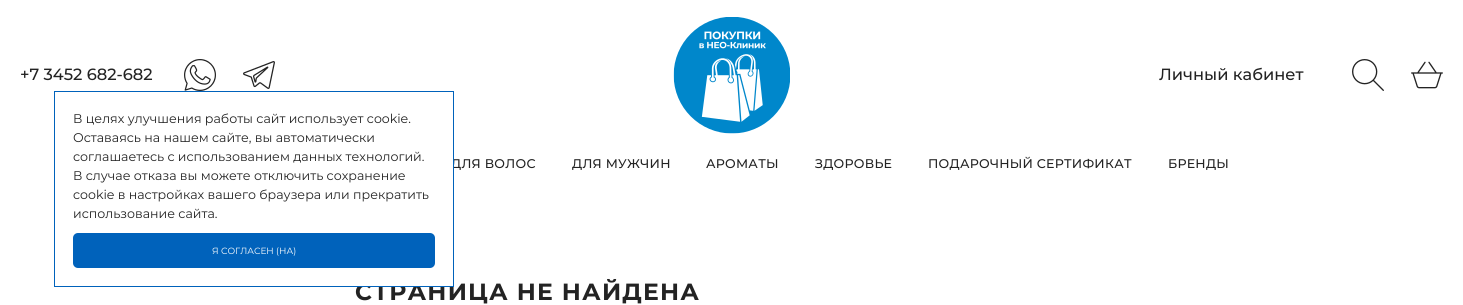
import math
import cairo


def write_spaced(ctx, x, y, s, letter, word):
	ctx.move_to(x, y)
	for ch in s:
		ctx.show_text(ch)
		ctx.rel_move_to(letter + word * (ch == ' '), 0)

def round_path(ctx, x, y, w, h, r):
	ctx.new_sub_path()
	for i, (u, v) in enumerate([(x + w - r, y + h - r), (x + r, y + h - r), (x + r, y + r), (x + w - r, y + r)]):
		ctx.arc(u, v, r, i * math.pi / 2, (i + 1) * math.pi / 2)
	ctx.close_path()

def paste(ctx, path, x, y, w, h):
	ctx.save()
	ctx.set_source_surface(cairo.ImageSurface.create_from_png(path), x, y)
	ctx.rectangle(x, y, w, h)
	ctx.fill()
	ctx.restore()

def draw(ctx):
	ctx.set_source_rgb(1, 1, 1)
	ctx.paint()
	ctx.select_font_face('Montserrat Medium')
	ctx.set_font_size(16.25)
	ctx.set_source_rgb(0.137, 0.137, 0.137)
	ctx.move_to(20, 80)
	ctx.show_text('+7 3452 682-682')
	paste(ctx, 'media/1.png', 184, 59, 32, 32)
	paste(ctx, 'media/2.png', 243, 61, 32, 28)
	paste(ctx, 'media/3.png', 673, 17, 117, 117)
	ctx.move_to(1159, 80)
	ctx.show_text('Личный кабинет')
	paste(ctx, 'media/4.png', 1352, 59, 32, 32)
	paste(ctx, 'media/5.png', 1411, 61, 32, 28)
	ctx.set_font_size(12.6)
	for x, y, s in [
		(451, 168, 'ДЛЯ ВОЛОС'),
		(572, 168, 'ДЛЯ МУЖЧИН'),
		(706, 168, 'АРОМАТЫ'),
		(815, 168, 'ЗДОРОВЬЕ'),
		(928, 168, 'ПОДАРОЧНЫЙ СЕРТИФИКАТ'),
		(1168, 168, 'БРЕНДЫ'),
	]:
		write_spaced(ctx, x, y, s, 0.25, 0)
	ctx.select_font_face('Montserrat', cairo.FONT_SLANT_NORMAL, cairo.FONT_WEIGHT_BOLD)
	ctx.set_font_size(23.4)
	write_spaced(ctx, 355, 300, 'СТРАНИЦА НЕ НАЙДЕНА', 1.2, 0)
	ctx.set_source_rgb(1, 1, 1)
	ctx.rectangle(358, 164, 95, 122)
	ctx.fill()
	ctx.rectangle(54.5, 91.5, 399, 195)
	ctx.set_source_rgb(0, 0.384, 0.733)
	ctx.set_line_width(1)
	ctx.stroke()
	ctx.select_font_face('Montserrat')
	ctx.set_font_size(12.6)
	ctx.set_source_rgb(0.137, 0.137, 0.137)
	for x, y, s in [
		(73, 123, 'В целях улучшения работы сайт использует cookie.'),
		(73, 142, 'Оставаясь на нашем сайте, вы автоматически'),
		(73, 161, 'соглашаетесь с использованием данных технологий.'),
		(73, 180, 'В случае отказа вы можете отключить сохранение'),
		(73, 199, 'cookie в настройках вашего браузера или прекратить'),
		(73, 218, 'использование сайта.'),
	]:
		ctx.move_to(x, y)
		ctx.show_text(s)
	ctx.set_source_rgb(0, 0.384, 0.733)
	round_path(ctx, 73, 233, 362, 35, 5)
	ctx.fill()
	ctx.set_font_size(9)
	ctx.set_source_rgb(1, 1, 1)
	ctx.move_to(212, 254)
	ctx.show_text('Я СОГЛАСЕН (НА)')


surface = cairo.ImageSurface(cairo.FORMAT_RGB24, 1463, 305)
ctx = cairo.Context(surface)
options = cairo.FontOptions()
options.set_hint_metrics(cairo.HINT_METRICS_OFF)
options.set_hint_style(cairo.HINT_STYLE_NONE)
ctx.set_font_options(options)
ctx.set_miter_limit(4)
draw(ctx)
surface.write_to_png('image.png')
